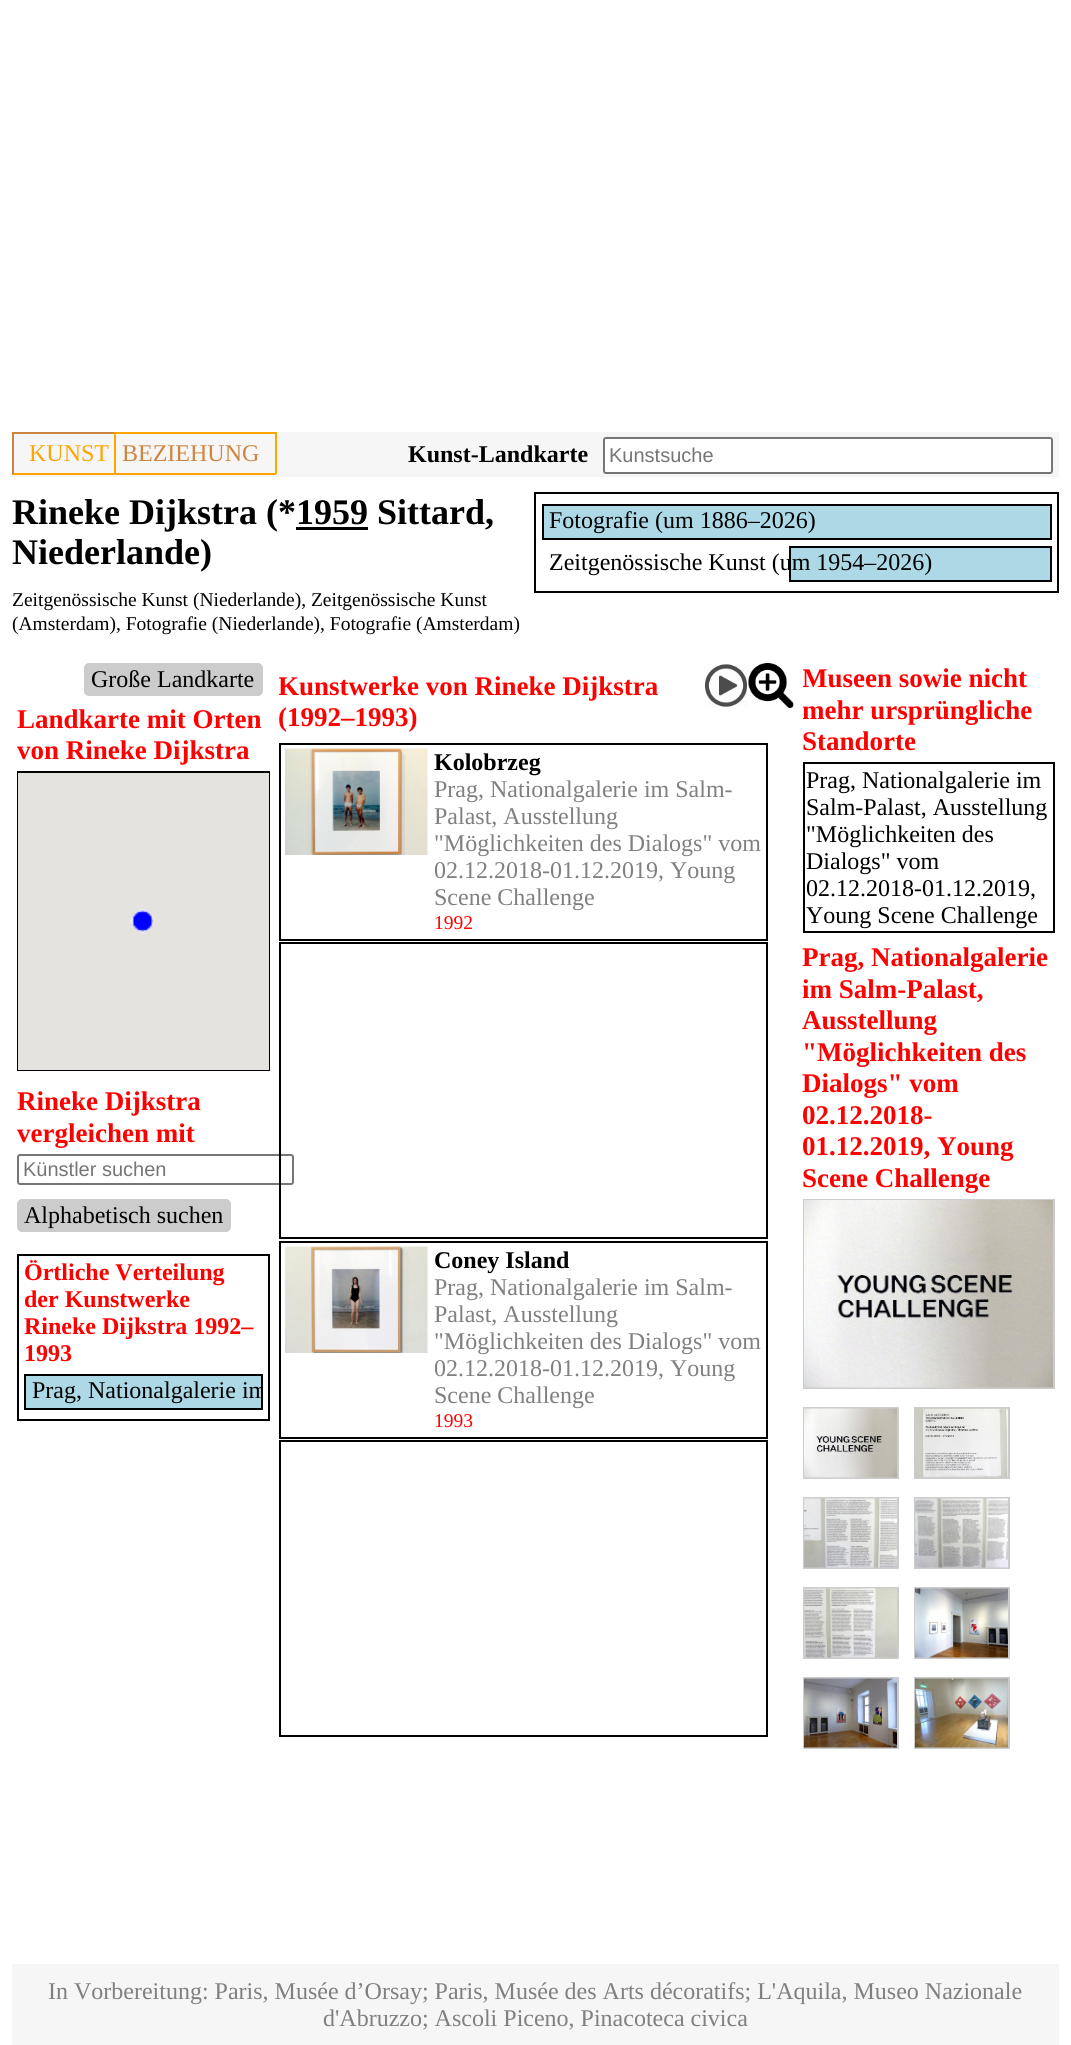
import math
import cairo


def round_path(ctx, x, y, w, h, r):
	ctx.new_sub_path()
	for i, (u, v) in enumerate([(x + w - r, y + h - r), (x + r, y + h - r), (x + r, y + r), (x + w - r, y + r)]):
		ctx.arc(u, v, r, i * math.pi / 2, (i + 1) * math.pi / 2)
	ctx.close_path()

def paste(ctx, path, x, y, w, h):
	ctx.save()
	ctx.set_source_surface(cairo.ImageSurface.create_from_png(path), x, y)
	ctx.rectangle(x, y, w, h)
	ctx.fill()
	ctx.restore()

def draw(ctx):
	ctx.set_source_rgb(1, 1, 1)
	ctx.paint()
	ctx.set_source_rgb(0.961, 0.961, 0.961)
	ctx.rectangle(12, 432, 1047, 45)
	ctx.fill()
	ctx.set_source_rgb(0.804, 0.522, 0.247)
	ctx.rectangle(12, 432, 104, 2)
	ctx.fill()
	ctx.set_source_rgb(1, 0.647, 0)
	ctx.rectangle(114, 432, 2, 42)
	ctx.rectangle(12, 473, 104, 2)
	ctx.fill()
	ctx.set_source_rgb(0.804, 0.522, 0.247)
	ctx.rectangle(12, 432, 2, 42)
	ctx.fill()
	ctx.select_font_face('Liberation Serif')
	ctx.set_font_size(24)
	ctx.set_source_rgb(1, 0.647, 0)
	ctx.move_to(29, 461)
	ctx.show_text('KUNST')
	ctx.rectangle(116, 432, 160, 2)
	ctx.rectangle(275, 432, 2, 42)
	ctx.rectangle(116, 473, 160, 2)
	ctx.fill()
	ctx.set_source_rgb(0.804, 0.522, 0.247)
	ctx.move_to(122, 461)
	ctx.show_text('BEZIEHUNG')
	ctx.select_font_face('Liberation Serif', cairo.FONT_SLANT_NORMAL, cairo.FONT_WEIGHT_BOLD)
	ctx.set_source_rgb(0, 0, 0)
	ctx.move_to(408, 462)
	ctx.show_text('Kunst-Landkarte')
	ctx.set_source_rgb(1, 1, 1)
	round_path(ctx, 604, 438, 448, 35, 2)
	ctx.fill_preserve()
	ctx.set_source_rgb(0.463, 0.463, 0.463)
	ctx.stroke()
	ctx.select_font_face('Liberation Sans')
	ctx.set_font_size(20)
	ctx.set_source_rgb(0.459, 0.459, 0.459)
	ctx.move_to(609, 462)
	ctx.show_text('Kunstsuche')
	ctx.select_font_face('Liberation Serif', cairo.FONT_SLANT_NORMAL, cairo.FONT_WEIGHT_BOLD)
	ctx.set_font_size(36)
	ctx.set_source_rgb(0, 0, 0)
	ctx.move_to(12, 524)
	ctx.show_text('Rineke Dijkstra (*1959 Sittard,')
	ctx.rectangle(296, 527, 72, 3)
	ctx.fill()
	ctx.move_to(12, 564)
	ctx.show_text('Niederlande)')
	ctx.rectangle(535, 493, 523, 99)
	ctx.stroke()
	ctx.set_source_rgb(0.678, 0.847, 0.902)
	ctx.rectangle(543, 505, 508, 34)
	ctx.fill_preserve()
	ctx.set_source_rgb(0, 0, 0)
	ctx.stroke()
	ctx.select_font_face('Liberation Serif')
	ctx.set_font_size(24)
	ctx.move_to(549, 528)
	ctx.show_text('Fotografie (um 1886–2026)')
	ctx.set_source_rgb(0.678, 0.847, 0.902)
	ctx.rectangle(790, 547, 261, 34)
	ctx.fill_preserve()
	ctx.set_source_rgb(0, 0, 0)
	ctx.stroke()
	ctx.move_to(549, 570)
	ctx.show_text('Zeitgenössische Kunst (um 1954–2026)')
	ctx.set_font_size(19.5)
	ctx.move_to(12, 606)
	ctx.show_text('Zeitgenössische Kunst (Niederlande), Zeitgenössische Kunst')
	ctx.move_to(12, 630)
	ctx.show_text('(Amsterdam), Fotografie (Niederlande), Fotografie (Amsterdam)')
	ctx.set_source_rgb(0.8, 0.8, 0.8)
	round_path(ctx, 84, 663, 179, 33, 5)
	ctx.fill()
	ctx.set_font_size(24)
	ctx.set_source_rgb(0, 0, 0)
	ctx.move_to(91, 687)
	ctx.show_text('Große Landkarte')
	ctx.select_font_face('Liberation Serif', cairo.FONT_SLANT_NORMAL, cairo.FONT_WEIGHT_BOLD)
	ctx.set_font_size(27)
	ctx.set_source_rgb(1, 0, 0)
	ctx.move_to(17, 728)
	ctx.show_text('Landkarte mit Orten')
	ctx.move_to(17, 759)
	ctx.show_text('von Rineke Dijkstra')
	ctx.rectangle(18, 772, 251, 298)
	ctx.set_source_rgb(0, 0, 0)
	ctx.stroke()
	ctx.set_source_rgb(0.898, 0.89, 0.875)
	ctx.rectangle(18, 773, 251, 297)
	ctx.fill()
	paste(ctx, 'media/1.png', 130, 909, 25, 24)
	ctx.set_source_rgb(1, 0, 0)
	ctx.move_to(17, 1110)
	ctx.show_text('Rineke Dijkstra')
	ctx.move_to(17, 1142)
	ctx.show_text('vergleichen mit')
	round_path(ctx, 18, 1155, 275, 29, 2)
	ctx.set_source_rgb(0.463, 0.463, 0.463)
	ctx.stroke()
	ctx.select_font_face('Liberation Sans')
	ctx.set_font_size(20)
	ctx.set_source_rgb(0.459, 0.459, 0.459)
	ctx.move_to(23, 1176)
	ctx.show_text('Künstler suchen')
	ctx.set_source_rgb(0.8, 0.8, 0.8)
	round_path(ctx, 17, 1199, 214, 33, 5)
	ctx.fill()
	ctx.select_font_face('Liberation Serif')
	ctx.set_font_size(24)
	ctx.set_source_rgb(0, 0, 0)
	ctx.move_to(24, 1223)
	ctx.show_text('Alphabetisch suchen')
	ctx.rectangle(18, 1255, 251, 165)
	ctx.stroke()
	ctx.select_font_face('Liberation Serif', cairo.FONT_SLANT_NORMAL, cairo.FONT_WEIGHT_BOLD)
	ctx.set_source_rgb(1, 0, 0)
	for x, y, s in [
		(24, 1280, 'Örtliche Verteilung'),
		(24, 1307, 'der Kunstwerke'),
		(24, 1334, 'Rineke Dijkstra 1992–'),
		(24, 1361, '1993'),
	]:
		ctx.move_to(x, y)
		ctx.show_text(s)
	ctx.set_source_rgb(0.678, 0.847, 0.902)
	ctx.rectangle(25, 1375, 237, 34)
	ctx.fill_preserve()
	ctx.set_source_rgb(0, 0, 0)
	ctx.stroke()
	ctx.save()
	ctx.rectangle(24, 1374, 239, 42)
	ctx.clip()
	ctx.select_font_face('Liberation Serif')
	ctx.move_to(32, 1398)
	ctx.show_text('Prag, Nationalgalerie im')
	ctx.restore()
	ctx.save()
	ctx.rectangle(279, 663, 515, 75)
	ctx.clip()
	ctx.set_font_size(27)
	ctx.set_source_rgb(1, 0, 0)
	ctx.move_to(278, 695)
	ctx.show_text('Kunstwerke von Rineke Dijkstra')
	ctx.restore()
	ctx.set_font_size(27)
	ctx.set_source_rgb(1, 0, 0)
	ctx.move_to(278, 726)
	ctx.show_text('(1992–1993)')
	paste(ctx, 'media/2.png', 704, 664, 44, 43)
	paste(ctx, 'media/3.png', 748, 663, 46, 45)
	ctx.rectangle(280, 744, 487, 196)
	ctx.set_source_rgb(0, 0, 0)
	ctx.stroke()
	paste(ctx, 'media/4.png', 285, 748, 143, 107)
	ctx.set_font_size(24)
	ctx.move_to(434, 770)
	ctx.show_text('Kolobrzeg')
	ctx.select_font_face('Liberation Serif')
	ctx.set_source_rgb(0.502, 0.502, 0.502)
	for x, y, s in [
		(434, 797, 'Prag, Nationalgalerie im Salm-'),
		(434, 824, 'Palast, Ausstellung'),
		(434, 851, '"Möglichkeiten des Dialogs" vom'),
		(434, 878, '02.12.2018-01.12.2019, Young'),
		(434, 905, 'Scene Challenge'),
	]:
		ctx.move_to(x, y)
		ctx.show_text(s)
	ctx.set_font_size(19.5)
	ctx.set_source_rgb(1, 0, 0)
	ctx.move_to(434, 929)
	ctx.show_text('1992')
	ctx.rectangle(280, 943, 487, 295)
	ctx.set_source_rgb(0, 0, 0)
	ctx.stroke()
	ctx.rectangle(280, 1242, 487, 196)
	ctx.stroke()
	paste(ctx, 'media/5.png', 285, 1246, 143, 107)
	ctx.select_font_face('Liberation Serif', cairo.FONT_SLANT_NORMAL, cairo.FONT_WEIGHT_BOLD)
	ctx.set_font_size(24)
	ctx.move_to(434, 1268)
	ctx.show_text('Coney Island')
	ctx.select_font_face('Liberation Serif')
	ctx.set_source_rgb(0.502, 0.502, 0.502)
	for x, y, s in [
		(434, 1295, 'Prag, Nationalgalerie im Salm-'),
		(434, 1322, 'Palast, Ausstellung'),
		(434, 1349, '"Möglichkeiten des Dialogs" vom'),
		(434, 1376, '02.12.2018-01.12.2019, Young'),
		(434, 1403, 'Scene Challenge'),
	]:
		ctx.move_to(x, y)
		ctx.show_text(s)
	ctx.set_font_size(19.5)
	ctx.set_source_rgb(1, 0, 0)
	ctx.move_to(434, 1427)
	ctx.show_text('1993')
	ctx.rectangle(280, 1441, 487, 295)
	ctx.set_source_rgb(0, 0, 0)
	ctx.stroke()
	ctx.save()
	ctx.rectangle(803, 656, 252, 279)
	ctx.clip()
	ctx.select_font_face('Liberation Serif', cairo.FONT_SLANT_NORMAL, cairo.FONT_WEIGHT_BOLD)
	ctx.set_font_size(27)
	ctx.set_source_rgb(1, 0, 0)
	ctx.move_to(802, 687)
	ctx.show_text('Museen sowie nicht')
	ctx.move_to(802, 719)
	ctx.show_text('mehr ursprüngliche')
	ctx.restore()
	ctx.select_font_face('Liberation Serif', cairo.FONT_SLANT_NORMAL, cairo.FONT_WEIGHT_BOLD)
	ctx.set_font_size(27)
	ctx.set_source_rgb(1, 0, 0)
	ctx.move_to(802, 750)
	ctx.show_text('Standorte')
	ctx.rectangle(804, 763, 250, 169)
	ctx.set_source_rgb(0, 0, 0)
	ctx.stroke()
	ctx.select_font_face('Liberation Serif')
	ctx.set_font_size(24)
	for x, y, s in [
		(806, 788, 'Prag, Nationalgalerie im'),
		(806, 815, 'Salm-Palast, Ausstellung'),
		(806, 842, '"Möglichkeiten des'),
		(806, 869, 'Dialogs" vom'),
		(806, 896, '02.12.2018-01.12.2019,'),
		(806, 923, 'Young Scene Challenge'),
	]:
		ctx.move_to(x, y)
		ctx.show_text(s)
	ctx.select_font_face('Liberation Serif', cairo.FONT_SLANT_NORMAL, cairo.FONT_WEIGHT_BOLD)
	ctx.set_font_size(27)
	ctx.set_source_rgb(1, 0, 0)
	for x, y, s in [
		(802, 966, 'Prag, Nationalgalerie'),
		(802, 998, 'im Salm-Palast,'),
		(802, 1029, 'Ausstellung'),
		(802, 1061, '"Möglichkeiten des'),
		(802, 1092, 'Dialogs" vom'),
		(802, 1124, '02.12.2018-'),
		(802, 1155, '01.12.2019, Young'),
		(802, 1187, 'Scene Challenge'),
	]:
		ctx.move_to(x, y)
		ctx.show_text(s)
	ctx.rectangle(804, 1200, 250, 188)
	ctx.set_source_rgb(0.8, 0.8, 0.8)
	ctx.stroke()
	paste(ctx, 'media/6.png', 804, 1200, 249, 188)
	ctx.rectangle(804, 1408, 94, 70)
	ctx.stroke()
	paste(ctx, 'media/7.png', 804, 1408, 93, 70)
	ctx.rectangle(915, 1408, 94, 70)
	ctx.stroke()
	paste(ctx, 'media/8.png', 915, 1408, 93, 70)
	ctx.rectangle(804, 1498, 94, 70)
	ctx.stroke()
	paste(ctx, 'media/9.png', 804, 1498, 93, 70)
	ctx.rectangle(915, 1498, 94, 70)
	ctx.stroke()
	paste(ctx, 'media/10.png', 915, 1498, 93, 70)
	ctx.rectangle(804, 1588, 94, 70)
	ctx.stroke()
	paste(ctx, 'media/11.png', 804, 1588, 93, 70)
	ctx.rectangle(915, 1588, 94, 70)
	ctx.stroke()
	paste(ctx, 'media/12.png', 915, 1588, 93, 70)
	ctx.rectangle(804, 1678, 94, 70)
	ctx.stroke()
	paste(ctx, 'media/13.png', 804, 1678, 93, 70)
	ctx.rectangle(915, 1678, 94, 70)
	ctx.stroke()
	paste(ctx, 'media/14.png', 915, 1678, 93, 70)
	ctx.set_source_rgb(0.961, 0.961, 0.961)
	ctx.rectangle(12, 1964, 1047, 81)
	ctx.fill()
	ctx.select_font_face('Liberation Serif')
	ctx.set_font_size(24)
	ctx.set_source_rgb(0.502, 0.502, 0.502)
	ctx.move_to(48, 1999)
	ctx.show_text('In Vorbereitung: Paris, Musée d’Orsay; Paris, Musée des Arts décoratifs; L\'Aquila, Museo Nazionale')
	ctx.move_to(323, 2026)
	ctx.show_text('d\'Abruzzo; Ascoli Piceno, Pinacoteca civica')


surface = cairo.ImageSurface(cairo.FORMAT_RGB24, 1071, 2045)
ctx = cairo.Context(surface)
options = cairo.FontOptions()
options.set_hint_metrics(cairo.HINT_METRICS_OFF)
options.set_hint_style(cairo.HINT_STYLE_NONE)
ctx.set_font_options(options)
ctx.set_miter_limit(4)
draw(ctx)
surface.write_to_png('image.png')
